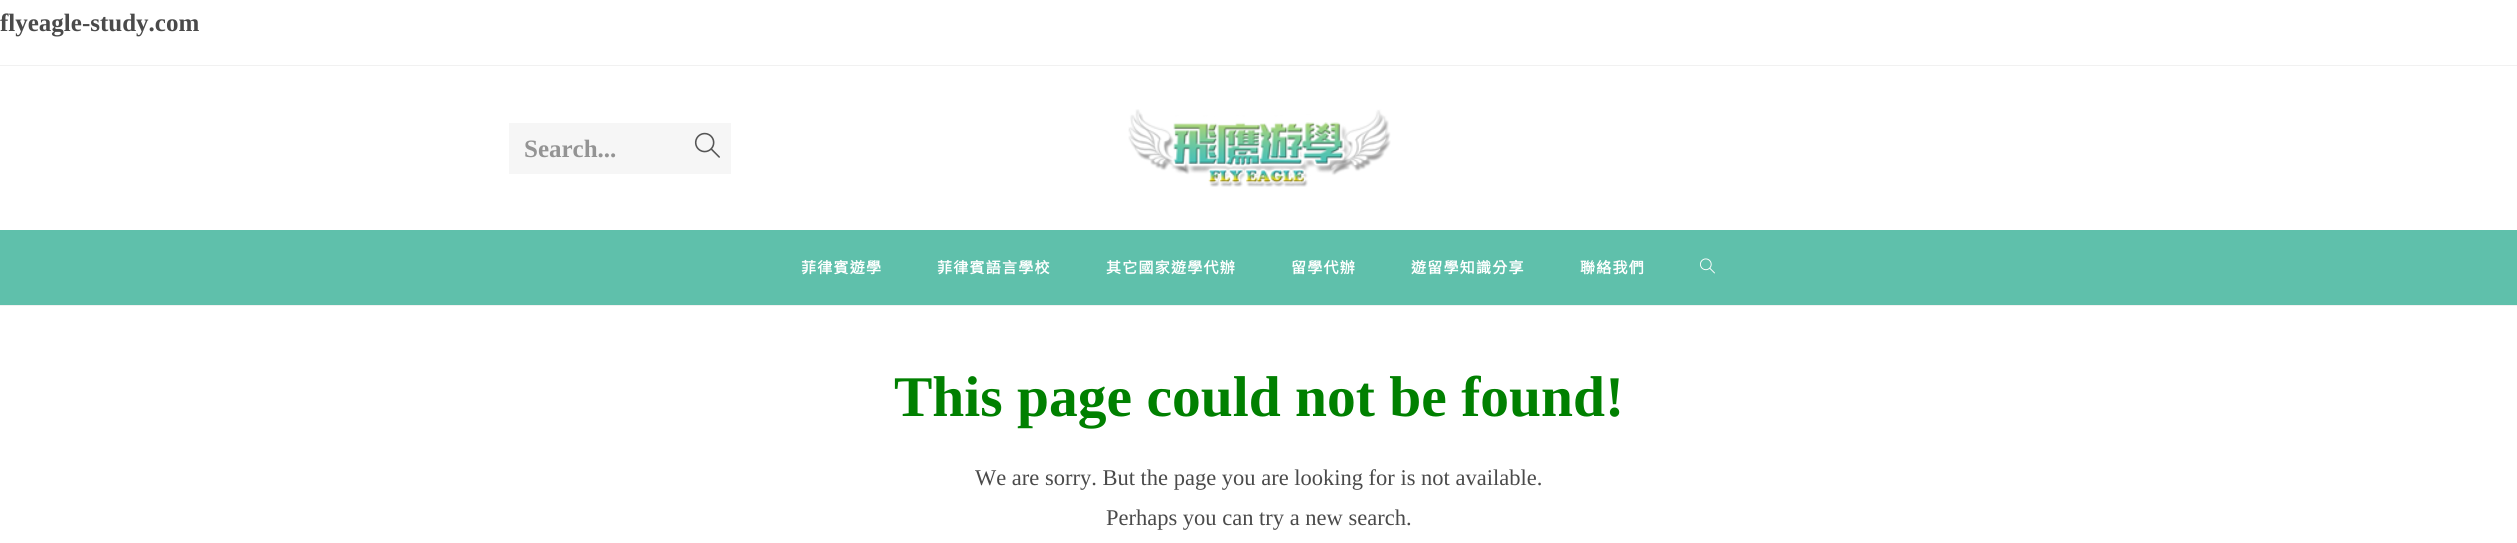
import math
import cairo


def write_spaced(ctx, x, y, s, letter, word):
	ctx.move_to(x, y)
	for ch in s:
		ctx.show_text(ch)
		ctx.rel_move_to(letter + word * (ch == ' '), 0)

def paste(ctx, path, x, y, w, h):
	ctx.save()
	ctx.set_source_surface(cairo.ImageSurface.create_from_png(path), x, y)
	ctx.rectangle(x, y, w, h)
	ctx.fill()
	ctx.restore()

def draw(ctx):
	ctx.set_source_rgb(1, 1, 1)
	ctx.paint()
	ctx.select_font_face('Liberation Serif', cairo.FONT_SLANT_NORMAL, cairo.FONT_WEIGHT_BOLD)
	ctx.set_font_size(25)
	ctx.set_source_rgb(0.29, 0.29, 0.29)
	ctx.move_to(0, 31)
	ctx.show_text('flyeagle-study.com')
	ctx.set_source_rgb(0.945, 0.945, 0.945)
	ctx.rectangle(0, 65, 2517, 1)
	ctx.rectangle(0, 305, 2517, 1)
	ctx.fill()
	ctx.set_source_rgb(0.961, 0.961, 0.961)
	ctx.rectangle(509, 123, 222, 51)
	ctx.fill()
	ctx.set_source_rgb(0.58, 0.58, 0.58)
	ctx.move_to(524, 157)
	ctx.show_text('Search...')
	paste(ctx, 'media/1.png', 694, 132, 26, 26)
	paste(ctx, 'media/2.png', 1128, 109, 263, 78)
	ctx.set_source_rgb(0.373, 0.753, 0.671)
	ctx.rectangle(0, 230, 2517, 75)
	ctx.fill()
	ctx.select_font_face('Noto Sans CJK TC', cairo.FONT_SLANT_NORMAL, cairo.FONT_WEIGHT_BOLD)
	ctx.set_font_size(15)
	ctx.set_source_rgb(1, 1, 1)
	for x, y, s in [
		(801, 273, '菲律賓遊學'),
		(937, 273, '菲律賓語言學校'),
		(1106, 273, '其它國家遊學代辦'),
		(1291, 273, '留學代辦'),
		(1411, 273, '遊留學知識分享'),
		(1580, 273, '聯絡我們'),
	]:
		write_spaced(ctx, x, y, s, 1.25, 0)
	paste(ctx, 'media/3.png', 1700, 258, 15, 16)
	ctx.select_font_face('Liberation Serif', cairo.FONT_SLANT_NORMAL, cairo.FONT_WEIGHT_BOLD)
	ctx.set_font_size(57.5)
	ctx.set_source_rgb(0, 0.502, 0)
	ctx.move_to(894, 416)
	ctx.show_text('This page could not be found!')
	ctx.select_font_face('Liberation Serif')
	ctx.set_font_size(22.5)
	ctx.set_source_rgb(0.29, 0.29, 0.29)
	ctx.move_to(975, 485)
	ctx.show_text('We are sorry. But the page you are looking for is not available.')
	ctx.move_to(1106, 525)
	ctx.show_text('Perhaps you can try a new search.')


surface = cairo.ImageSurface(cairo.FORMAT_RGB24, 2517, 543)
ctx = cairo.Context(surface)
options = cairo.FontOptions()
options.set_hint_metrics(cairo.HINT_METRICS_OFF)
options.set_hint_style(cairo.HINT_STYLE_NONE)
ctx.set_font_options(options)
ctx.set_miter_limit(4)
draw(ctx)
surface.write_to_png('image.png')
